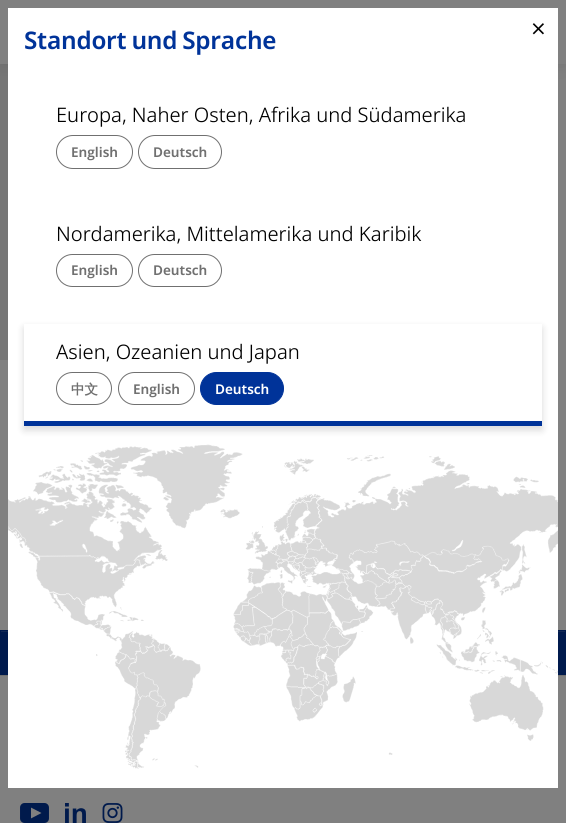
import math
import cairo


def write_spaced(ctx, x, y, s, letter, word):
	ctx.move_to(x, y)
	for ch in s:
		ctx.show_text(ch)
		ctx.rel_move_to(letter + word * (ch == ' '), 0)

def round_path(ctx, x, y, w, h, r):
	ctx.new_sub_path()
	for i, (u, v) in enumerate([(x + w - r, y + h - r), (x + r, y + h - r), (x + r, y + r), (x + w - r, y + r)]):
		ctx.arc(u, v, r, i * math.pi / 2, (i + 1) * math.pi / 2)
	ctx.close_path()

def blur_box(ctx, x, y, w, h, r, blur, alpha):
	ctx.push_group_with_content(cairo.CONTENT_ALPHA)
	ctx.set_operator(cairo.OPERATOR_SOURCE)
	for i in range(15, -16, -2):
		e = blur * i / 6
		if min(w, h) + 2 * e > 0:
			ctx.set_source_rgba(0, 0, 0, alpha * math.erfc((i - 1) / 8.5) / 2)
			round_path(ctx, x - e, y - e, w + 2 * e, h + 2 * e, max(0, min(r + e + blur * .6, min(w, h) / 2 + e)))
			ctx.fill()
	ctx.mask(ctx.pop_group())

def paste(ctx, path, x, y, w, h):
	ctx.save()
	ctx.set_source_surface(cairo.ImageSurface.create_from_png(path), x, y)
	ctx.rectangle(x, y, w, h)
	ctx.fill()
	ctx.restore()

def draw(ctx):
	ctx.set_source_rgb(0.502, 0.502, 0.502)
	ctx.paint()
	gradient = cairo.LinearGradient(0, 191, 566, 191)
	gradient.add_color_stop_rgba(0, 0.463, 0.463, 0.463, 1)
	gradient.add_color_stop_rgba(1, 0.502, 0.502, 0.502, 1)
	ctx.set_source(gradient)
	ctx.rectangle(0, 64, 425, 296)
	ctx.fill()
	ctx.set_source_rgb(0, 0, 0)
	blur_box(ctx, 0, 0, 566, 64, 0, 8, 0.1)
	ctx.set_source_rgb(0.502, 0.502, 0.502)
	ctx.rectangle(0, 0, 566, 64)
	ctx.fill()
	ctx.set_source_rgb(0, 0.102, 0.302)
	ctx.rectangle(1, 632, 7, 42)
	ctx.fill()
	ctx.set_source_rgb(0.075, 0.161, 0.329)
	ctx.rectangle(1, 631, 7, 1)
	ctx.fill()
	ctx.rectangle(0.5, 630.5, 188, 44)
	ctx.set_source_rgb(0, 0.102, 0.302)
	ctx.set_line_width(1)
	ctx.stroke()
	ctx.rectangle(558, 632, 7, 42)
	ctx.fill()
	ctx.set_source_rgb(0.075, 0.161, 0.329)
	ctx.rectangle(558, 631, 7, 1)
	ctx.fill()
	ctx.rectangle(377.5, 630.5, 188, 44)
	ctx.set_source_rgb(0, 0.102, 0.302)
	ctx.stroke()
	ctx.set_source_rgb(0.443, 0.443, 0.443)
	ctx.rectangle(0, 675, 566, 1)
	ctx.fill()
	ctx.set_source_rgb(1, 1, 1)
	ctx.rectangle(8, 8, 550, 780)
	ctx.fill()
	ctx.select_font_face('Open Sans SemiBold')
	ctx.set_font_size(24.25)
	ctx.set_source_rgb(0, 0.2, 0.6)
	write_spaced(ctx, 24, 49, 'Standort und Sprache', -0.25, -1)
	ctx.select_font_face('DejaVu Sans')
	ctx.set_font_size(20)
	ctx.set_source_rgb(0, 0, 0)
	ctx.move_to(530, 35)
	ctx.show_text('⨯')
	ctx.select_font_face('Open Sans Light')
	ctx.move_to(56, 122)
	ctx.show_text('Europa, Naher Osten, Afrika und Südamerika')
	round_path(ctx, 56.5, 135.5, 76, 33, 16.5)
	ctx.set_source_rgb(0.439, 0.439, 0.439)
	ctx.stroke()
	ctx.select_font_face('Open Sans SemiBold')
	ctx.set_font_size(13.5)
	ctx.move_to(71, 157)
	ctx.show_text('English')
	round_path(ctx, 138.5, 135.5, 83, 33, 16.5)
	ctx.stroke()
	ctx.move_to(153, 157)
	ctx.show_text('Deutsch')
	ctx.select_font_face('Open Sans Light')
	ctx.set_font_size(20)
	ctx.set_source_rgb(0, 0, 0)
	ctx.move_to(56, 241)
	ctx.show_text('Nordamerika, Mittelamerika und Karibik')
	round_path(ctx, 56.5, 254.5, 76, 32, 16)
	ctx.set_source_rgb(0.439, 0.439, 0.439)
	ctx.stroke()
	ctx.select_font_face('Open Sans SemiBold')
	ctx.set_font_size(13.5)
	ctx.move_to(71, 275)
	ctx.show_text('English')
	round_path(ctx, 138.5, 254.5, 83, 32, 16)
	ctx.stroke()
	ctx.move_to(153, 275)
	ctx.show_text('Deutsch')
	ctx.save()
	ctx.set_fill_rule(cairo.FILL_RULE_EVEN_ODD)
	ctx.new_path()
	ctx.move_to(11, 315)
	ctx.line_to(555, 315)
	ctx.line_to(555, 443)
	ctx.line_to(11, 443)
	ctx.close_path()
	ctx.move_to(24, 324)
	ctx.line_to(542, 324)
	ctx.line_to(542, 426)
	ctx.line_to(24, 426)
	ctx.close_path()
	ctx.clip()
	ctx.set_source_rgb(0, 0, 0)
	blur_box(ctx, 24, 328, 518, 102, 0, 4, 0.15)
	ctx.restore()
	ctx.set_source_rgb(0, 0.2, 0.6)
	ctx.rectangle(24, 421, 518, 5)
	ctx.fill()
	ctx.select_font_face('Open Sans Light')
	ctx.set_font_size(20)
	ctx.set_source_rgb(0, 0, 0)
	ctx.move_to(56, 359)
	ctx.show_text('Asien, Ozeanien und Japan')
	round_path(ctx, 56.5, 372.5, 55, 32, 16)
	ctx.set_source_rgb(0.439, 0.439, 0.439)
	ctx.stroke()
	ctx.select_font_face('WenQuanYi Zen Hei', cairo.FONT_SLANT_NORMAL, cairo.FONT_WEIGHT_BOLD)
	ctx.set_font_size(13.5)
	ctx.move_to(71, 394)
	ctx.show_text('中文')
	round_path(ctx, 118.5, 372.5, 76, 32, 16)
	ctx.stroke()
	ctx.select_font_face('Open Sans SemiBold')
	ctx.move_to(133, 394)
	ctx.show_text('English')
	ctx.set_source_rgb(0, 0.2, 0.6)
	round_path(ctx, 200.5, 372.5, 83, 32, 16)
	ctx.fill_preserve()
	ctx.stroke()
	ctx.set_source_rgb(1, 1, 1)
	ctx.move_to(215, 394)
	ctx.show_text('Deutsch')
	paste(ctx, 'media/1.png', 8, 444, 550, 325)
	paste(ctx, 'media/2.png', 20, 803, 29, 20)
	paste(ctx, 'media/3.png', 65, 803, 21, 20)
	paste(ctx, 'media/4.png', 102, 803, 21, 20)


surface = cairo.ImageSurface(cairo.FORMAT_RGB24, 566, 823)
ctx = cairo.Context(surface)
options = cairo.FontOptions()
options.set_hint_metrics(cairo.HINT_METRICS_OFF)
options.set_hint_style(cairo.HINT_STYLE_NONE)
ctx.set_font_options(options)
ctx.set_miter_limit(4)
draw(ctx)
surface.write_to_png('image.png')
